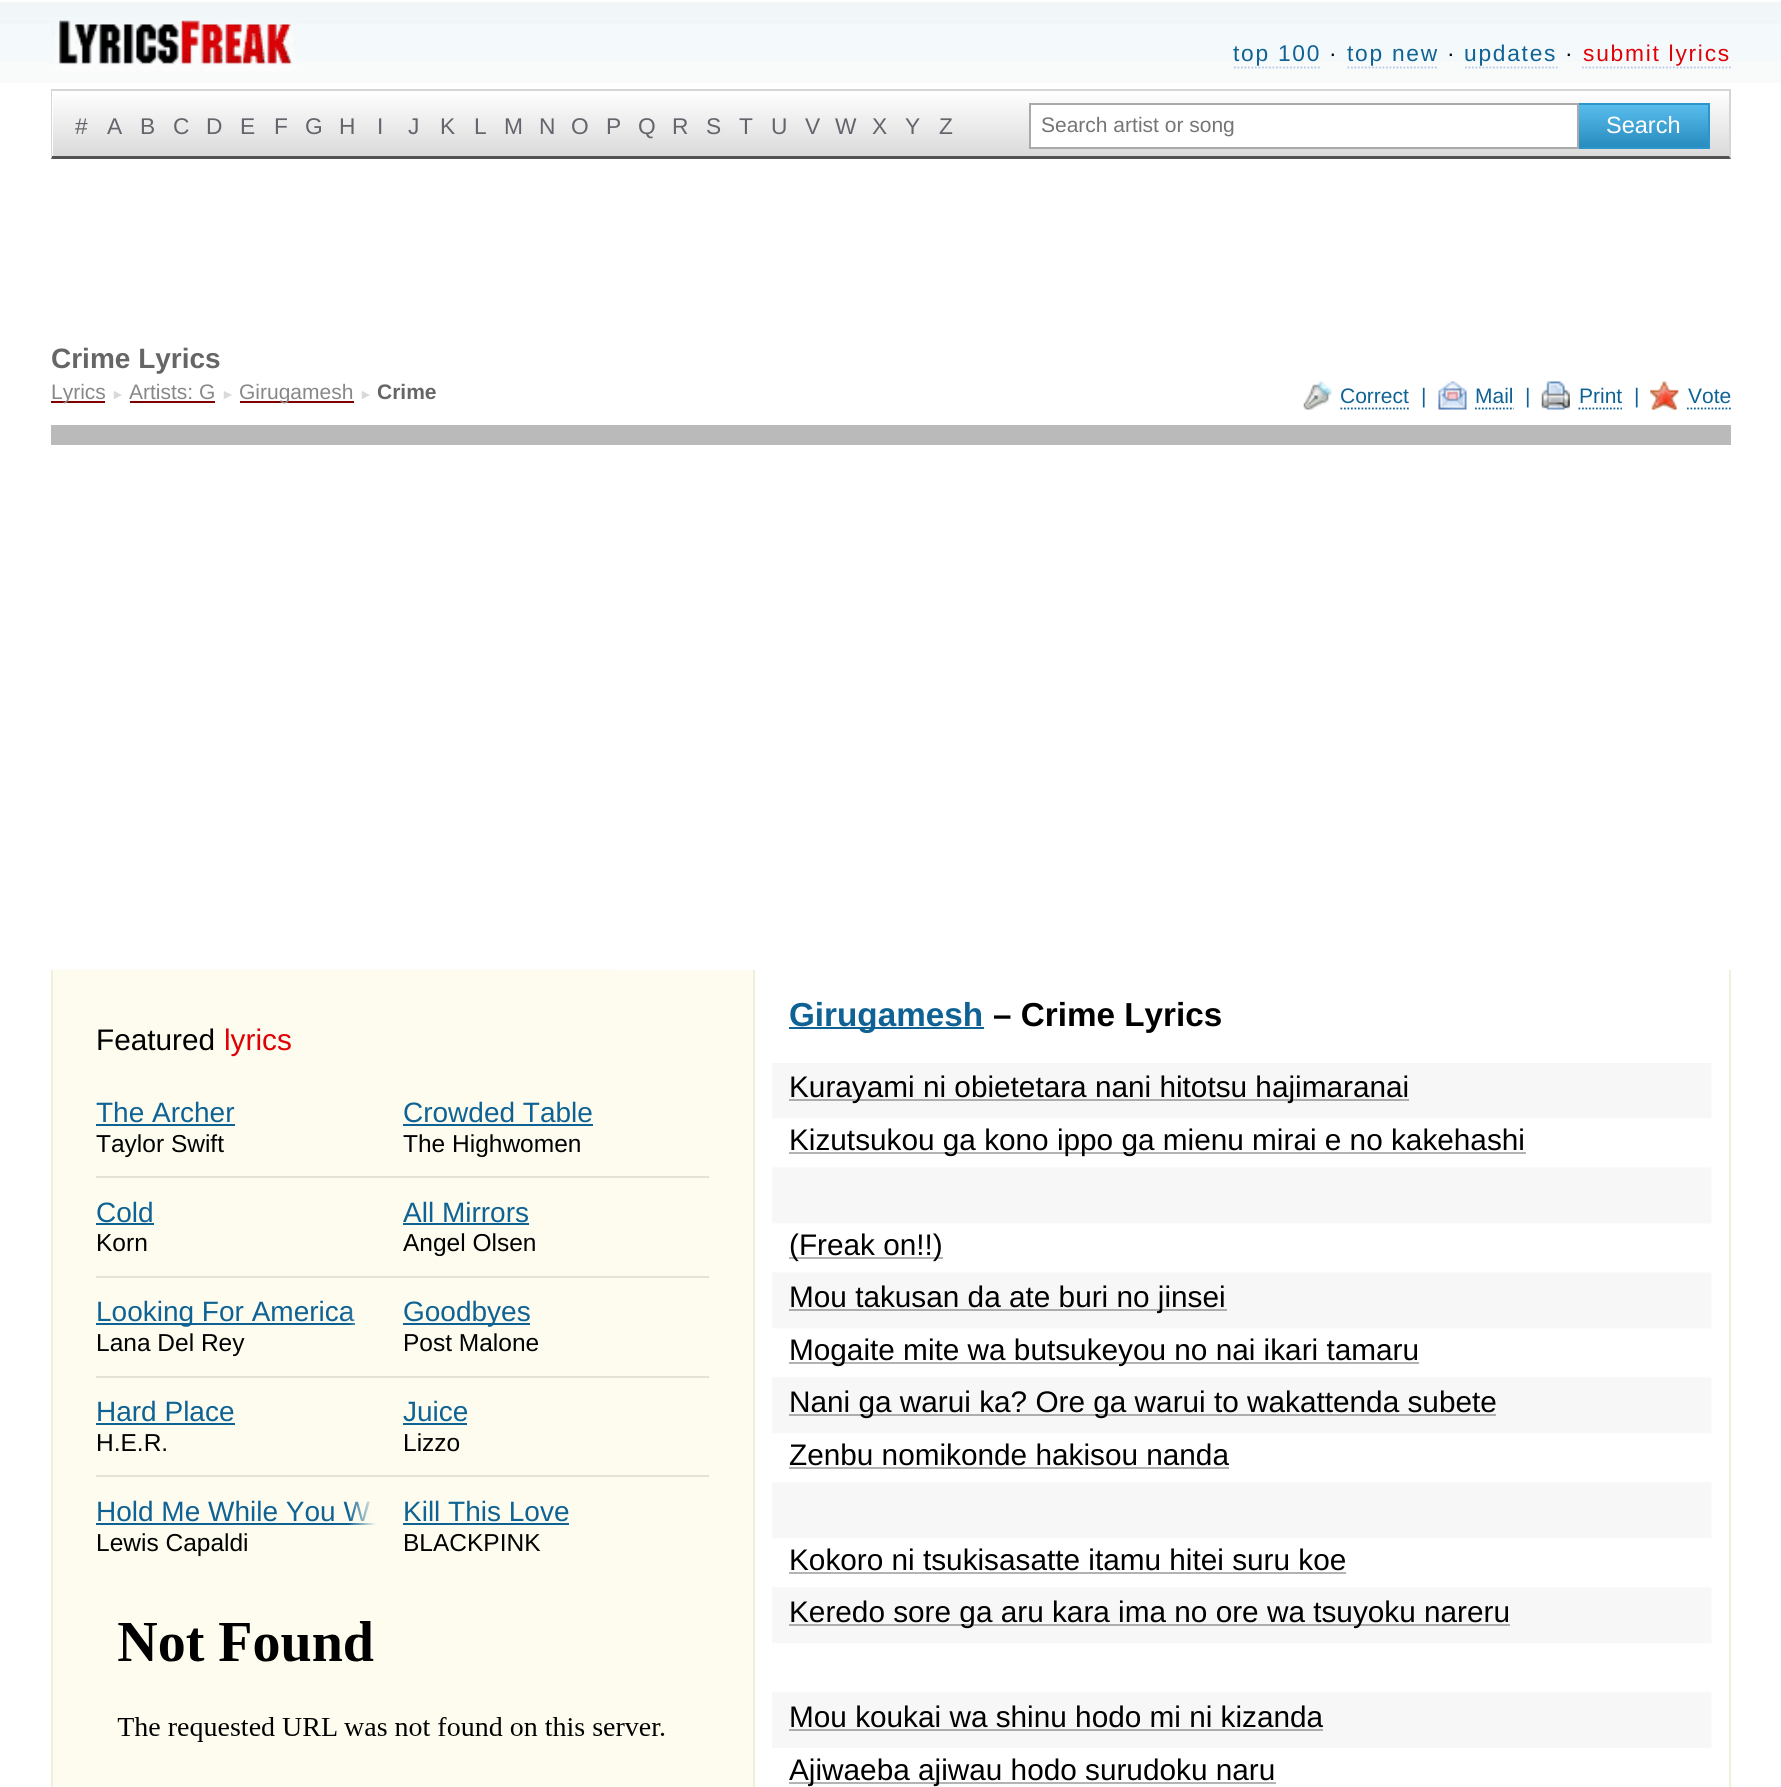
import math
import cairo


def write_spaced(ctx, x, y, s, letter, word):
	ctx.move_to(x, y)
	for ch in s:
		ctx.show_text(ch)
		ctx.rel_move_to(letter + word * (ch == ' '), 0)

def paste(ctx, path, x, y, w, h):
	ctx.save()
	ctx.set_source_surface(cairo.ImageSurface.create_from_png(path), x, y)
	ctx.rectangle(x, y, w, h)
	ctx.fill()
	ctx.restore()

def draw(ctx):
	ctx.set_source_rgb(1, 1, 1)
	ctx.paint()
	paste(ctx, 'media/1.png', 0, 1, 1781, 82)
	paste(ctx, 'media/2.png', 51, 20, 246, 52)
	ctx.select_font_face('Liberation Sans')
	ctx.set_font_size(22.75)
	ctx.set_source_rgb(0.059, 0.384, 0.58)
	write_spaced(ctx, 1233, 61, 'top 100', 1.75, 0)
	ctx.new_path()
	ctx.move_to(1234, 67.5)
	ctx.line_to(1321, 67.5)
	ctx.set_source_rgb(0.698, 0.78, 0.906)
	ctx.set_line_width(1.8)
	ctx.set_dash([1.75, 1.75])
	ctx.stroke()
	ctx.set_source_rgb(0, 0, 0)
	write_spaced(ctx, 1329, 61, '·', 1.75, 0)
	ctx.set_source_rgb(0.059, 0.384, 0.58)
	write_spaced(ctx, 1347, 61, 'top new', 1.75, 0)
	ctx.new_path()
	ctx.move_to(1347.5, 67.5)
	ctx.line_to(1438.5, 67.5)
	ctx.set_source_rgb(0.698, 0.78, 0.906)
	ctx.stroke()
	ctx.set_source_rgb(0, 0, 0)
	write_spaced(ctx, 1447, 61, '·', 1.75, 0)
	ctx.set_source_rgb(0.059, 0.384, 0.58)
	write_spaced(ctx, 1464, 61, 'updates', 1.75, 0)
	ctx.new_path()
	ctx.move_to(1465, 67.5)
	ctx.line_to(1557.5, 67.5)
	ctx.set_source_rgb(0.698, 0.78, 0.906)
	ctx.stroke()
	ctx.set_source_rgb(0, 0, 0)
	write_spaced(ctx, 1565, 61, '·', 1.75, 0)
	ctx.set_source_rgb(0.878, 0.004, 0.027)
	write_spaced(ctx, 1583, 61, 'submit lyrics', 1.75, 0)
	ctx.new_path()
	ctx.move_to(1582, 67.5)
	ctx.line_to(1731, 67.5)
	ctx.set_source_rgb(0.698, 0.78, 0.906)
	ctx.stroke()
	gradient = cairo.LinearGradient(891, 91, 891, 156)
	gradient.add_color_stop_rgba(0, 1, 1, 1, 1)
	gradient.add_color_stop_rgba(1, 0.855, 0.855, 0.855, 1)
	ctx.set_source(gradient)
	ctx.rectangle(53, 95, 1676, 61)
	ctx.fill()
	ctx.set_source_rgb(0.839, 0.839, 0.839)
	ctx.rectangle(51, 89, 1680, 2)
	ctx.fill()
	ctx.new_path()
	ctx.move_to(1731, 89)
	ctx.line_to(1731, 159)
	ctx.line_to(1729, 156)
	ctx.line_to(1729, 91)
	ctx.close_path()
	ctx.fill()
	ctx.set_source_rgb(0.322, 0.322, 0.322)
	ctx.new_path()
	ctx.move_to(1731, 159)
	ctx.line_to(51, 159)
	ctx.line_to(52, 156)
	ctx.line_to(1729, 156)
	ctx.close_path()
	ctx.fill()
	ctx.set_source_rgb(0.839, 0.839, 0.839)
	ctx.new_path()
	ctx.move_to(51, 159)
	ctx.line_to(51, 89)
	ctx.line_to(52, 91)
	ctx.line_to(52, 156)
	ctx.close_path()
	ctx.fill()
	ctx.set_source_rgb(0.392, 0.392, 0.424)
	for x, y, s in [
		(75, 134, '#'),
		(107, 134, 'A'),
		(140, 134, 'B'),
		(173, 134, 'C'),
		(206, 134, 'D'),
		(240, 134, 'E'),
		(274, 134, 'F'),
		(305, 134, 'G'),
		(339, 134, 'H'),
		(377, 134, 'I'),
		(408, 134, 'J'),
		(440, 134, 'K'),
		(474, 134, 'L'),
		(504, 134, 'M'),
		(539, 134, 'N'),
		(571, 134, 'O'),
		(606, 134, 'P'),
		(638, 134, 'Q'),
		(672, 134, 'R'),
		(706, 134, 'S'),
		(739, 134, 'T'),
		(771, 134, 'U'),
		(805, 134, 'V'),
		(835, 134, 'W'),
		(872, 134, 'X'),
		(905, 134, 'Y'),
		(939, 134, 'Z'),
	]:
		ctx.move_to(x, y)
		ctx.show_text(s)
	ctx.set_source_rgb(1, 1, 1)
	ctx.rectangle(1030, 104, 548, 44)
	ctx.fill_preserve()
	ctx.set_source_rgb(0.667, 0.667, 0.667)
	ctx.set_line_width(2)
	ctx.set_dash([])
	ctx.stroke()
	ctx.set_font_size(21)
	ctx.set_source_rgb(0.459, 0.459, 0.459)
	ctx.move_to(1041, 132)
	ctx.show_text('Search artist or song')
	gradient = cairo.LinearGradient(1643, 105, 1643, 147)
	gradient.add_color_stop_rgba(0, 0.345, 0.737, 0.929, 1)
	gradient.add_color_stop_rgba(1, 0.161, 0.549, 0.745, 1)
	ctx.set_source(gradient)
	ctx.rectangle(1579, 105, 129, 42)
	ctx.fill()
	ctx.set_source_rgb(0.173, 0.584, 0.792)
	ctx.rectangle(1579, 103, 131, 2)
	ctx.rectangle(1708, 103, 2, 46)
	ctx.rectangle(1579, 147, 131, 2)
	ctx.fill()
	ctx.set_font_size(23.5)
	ctx.set_source_rgb(1, 1, 1)
	ctx.move_to(1606, 133)
	ctx.show_text('Search')
	ctx.select_font_face('Liberation Sans', cairo.FONT_SLANT_NORMAL, cairo.FONT_WEIGHT_BOLD)
	ctx.set_font_size(28)
	ctx.set_source_rgb(0.4, 0.4, 0.4)
	ctx.move_to(51, 368)
	ctx.show_text('Crime Lyrics')
	ctx.set_source_rgb(0.502, 0, 0)
	ctx.rectangle(51, 401, 54, 2)
	ctx.fill()
	ctx.select_font_face('Liberation Sans')
	ctx.set_font_size(21)
	ctx.set_source_rgb(0.533, 0.533, 0.533)
	ctx.move_to(51, 399)
	ctx.show_text('Lyrics')
	ctx.set_font_size(14)
	ctx.set_source_rgb(0.851, 0.851, 0.851)
	ctx.move_to(111, 399)
	ctx.show_text('►')
	ctx.set_font_size(21)
	ctx.set_source_rgb(0.533, 0.533, 0.533)
	ctx.move_to(129, 399)
	ctx.show_text('Artists: G')
	ctx.set_source_rgb(0.502, 0, 0)
	ctx.rectangle(130, 401, 85, 2)
	ctx.fill()
	ctx.set_font_size(14)
	ctx.set_source_rgb(0.851, 0.851, 0.851)
	ctx.move_to(221, 399)
	ctx.show_text('►')
	ctx.set_source_rgb(0.502, 0, 0)
	ctx.rectangle(240, 401, 114, 2)
	ctx.fill()
	ctx.set_font_size(21)
	ctx.set_source_rgb(0.533, 0.533, 0.533)
	ctx.move_to(239, 399)
	ctx.show_text('Girugamesh')
	ctx.set_font_size(14)
	ctx.set_source_rgb(0.851, 0.851, 0.851)
	ctx.move_to(359, 399)
	ctx.show_text('►')
	ctx.select_font_face('Liberation Sans', cairo.FONT_SLANT_NORMAL, cairo.FONT_WEIGHT_BOLD)
	ctx.set_font_size(21)
	ctx.set_source_rgb(0.4, 0.4, 0.4)
	ctx.move_to(377, 399)
	ctx.show_text('Crime')
	paste(ctx, 'media/3.png', 1303, 381, 29, 29)
	ctx.select_font_face('Liberation Sans')
	ctx.set_source_rgb(0.059, 0.384, 0.58)
	ctx.move_to(1340, 403)
	ctx.show_text('Correct')
	ctx.new_path()
	ctx.move_to(1340.5, 408.5)
	ctx.line_to(1409, 408.5)
	ctx.set_line_width(1.8)
	ctx.set_dash([1.75, 1.75])
	ctx.stroke()
	ctx.move_to(1421, 403)
	ctx.show_text('|')
	paste(ctx, 'media/4.png', 1438, 381, 29, 29)
	ctx.move_to(1475, 403)
	ctx.show_text('Mail')
	ctx.new_path()
	ctx.move_to(1475, 408.5)
	ctx.line_to(1514, 408.5)
	ctx.stroke()
	ctx.move_to(1525, 403)
	ctx.show_text('|')
	paste(ctx, 'media/5.png', 1541, 381, 29, 29)
	ctx.move_to(1579, 403)
	ctx.show_text('Print')
	ctx.new_path()
	ctx.move_to(1578.5, 408.5)
	ctx.line_to(1622, 408.5)
	ctx.stroke()
	ctx.move_to(1634, 403)
	ctx.show_text('|')
	paste(ctx, 'media/6.png', 1650, 381, 29, 29)
	ctx.move_to(1688, 403)
	ctx.show_text('Vote')
	ctx.new_path()
	ctx.move_to(1687, 408.5)
	ctx.line_to(1731, 408.5)
	ctx.stroke()
	ctx.set_source_rgb(0.729, 0.729, 0.729)
	ctx.rectangle(51, 425, 1680, 20)
	ctx.fill()
	paste(ctx, 'media/7.png', 52, 969, 561, 1)
	ctx.set_source_rgb(0.941, 0.937, 0.859)
	ctx.rectangle(1729, 970, 2, 817)
	ctx.rectangle(51, 970, 2, 817)
	ctx.fill()
	ctx.set_source_rgb(0.992, 0.988, 0.933)
	ctx.rectangle(53, 970, 700, 817)
	ctx.fill()
	ctx.set_source_rgb(0.941, 0.937, 0.859)
	ctx.rectangle(753, 970, 2, 817)
	ctx.fill()
	ctx.set_font_size(29.75)
	ctx.set_source_rgb(0, 0, 0)
	ctx.move_to(96, 1050)
	ctx.show_text('Featured')
	ctx.set_source_rgb(0.878, 0.004, 0.027)
	ctx.move_to(224, 1050)
	ctx.show_text('lyrics')
	ctx.set_source_rgb(0.894, 0.89, 0.839)
	ctx.rectangle(96, 1176, 613, 2)
	ctx.fill()
	ctx.set_font_size(28)
	ctx.set_source_rgb(0.059, 0.384, 0.58)
	ctx.move_to(96, 1122)
	ctx.show_text('The Archer')
	ctx.rectangle(96, 1124, 139, 2)
	ctx.fill()
	ctx.set_font_size(24.5)
	ctx.set_source_rgb(0, 0, 0)
	ctx.move_to(96, 1152)
	ctx.show_text('Taylor Swift')
	ctx.set_font_size(28)
	ctx.set_source_rgb(0.059, 0.384, 0.58)
	ctx.move_to(403, 1122)
	ctx.show_text('Crowded Table')
	ctx.rectangle(403, 1124, 190, 2)
	ctx.fill()
	ctx.set_font_size(24.5)
	ctx.set_source_rgb(0, 0, 0)
	ctx.move_to(403, 1152)
	ctx.show_text('The Highwomen')
	ctx.set_source_rgb(0.894, 0.89, 0.839)
	ctx.rectangle(96, 1276, 613, 2)
	ctx.fill()
	ctx.set_font_size(28)
	ctx.set_source_rgb(0.059, 0.384, 0.58)
	ctx.move_to(96, 1222)
	ctx.show_text('Cold')
	ctx.rectangle(96, 1223, 58, 2)
	ctx.fill()
	ctx.set_font_size(24.5)
	ctx.set_source_rgb(0, 0, 0)
	ctx.move_to(96, 1251)
	ctx.show_text('Korn')
	ctx.set_font_size(28)
	ctx.set_source_rgb(0.059, 0.384, 0.58)
	ctx.move_to(403, 1222)
	ctx.show_text('All Mirrors')
	ctx.rectangle(403, 1223, 126, 2)
	ctx.fill()
	ctx.set_font_size(24.5)
	ctx.set_source_rgb(0, 0, 0)
	ctx.move_to(403, 1251)
	ctx.show_text('Angel Olsen')
	ctx.set_source_rgb(0.894, 0.89, 0.839)
	ctx.rectangle(96, 1376, 613, 2)
	ctx.fill()
	ctx.set_source_rgb(0.059, 0.384, 0.58)
	ctx.rectangle(96, 1323, 259, 2)
	ctx.fill()
	ctx.set_font_size(28)
	ctx.move_to(96, 1321)
	ctx.show_text('Looking For America')
	gradient = cairo.LinearGradient(348, 1314, 383, 1314)
	gradient.add_color_stop_rgba(0, 0.992, 0.988, 0.933, 0)
	gradient.add_color_stop_rgba(0.8, 0.992, 0.988, 0.933, 1)
	gradient.add_color_stop_rgba(1, 0.992, 0.988, 0.933, 1)
	ctx.set_source(gradient)
	ctx.rectangle(349, 1306, 6, 19)
	ctx.fill()
	ctx.set_font_size(24.5)
	ctx.set_source_rgb(0, 0, 0)
	ctx.move_to(96, 1351)
	ctx.show_text('Lana Del Rey')
	ctx.set_source_rgb(0.059, 0.384, 0.58)
	ctx.rectangle(403, 1323, 127, 2)
	ctx.fill()
	ctx.set_font_size(28)
	ctx.move_to(403, 1321)
	ctx.show_text('Goodbyes')
	ctx.set_font_size(24.5)
	ctx.set_source_rgb(0, 0, 0)
	ctx.move_to(403, 1351)
	ctx.show_text('Post Malone')
	ctx.set_source_rgb(0.894, 0.89, 0.839)
	ctx.rectangle(96, 1475, 613, 2)
	ctx.fill()
	ctx.set_font_size(28)
	ctx.set_source_rgb(0.059, 0.384, 0.58)
	ctx.move_to(96, 1421)
	ctx.show_text('Hard Place')
	ctx.rectangle(96, 1423, 139, 2)
	ctx.fill()
	ctx.set_font_size(24.5)
	ctx.set_source_rgb(0, 0, 0)
	ctx.move_to(96, 1451)
	ctx.show_text('H.E.R.')
	ctx.set_font_size(28)
	ctx.set_source_rgb(0.059, 0.384, 0.58)
	ctx.move_to(403, 1421)
	ctx.show_text('Juice')
	ctx.rectangle(403, 1423, 64, 2)
	ctx.fill()
	ctx.set_font_size(24.5)
	ctx.set_source_rgb(0, 0, 0)
	ctx.move_to(403, 1451)
	ctx.show_text('Lizzo')
	ctx.set_font_size(28)
	ctx.set_source_rgb(0.059, 0.384, 0.58)
	ctx.move_to(96, 1521)
	ctx.show_text('Hold Me While You W')
	ctx.rectangle(96, 1523, 287, 2)
	ctx.fill()
	gradient = cairo.LinearGradient(348, 1514, 383, 1514)
	gradient.add_color_stop_rgba(0, 0.992, 0.988, 0.933, 0)
	gradient.add_color_stop_rgba(0.8, 0.992, 0.988, 0.933, 1)
	gradient.add_color_stop_rgba(1, 0.992, 0.988, 0.933, 1)
	ctx.set_source(gradient)
	ctx.rectangle(349, 1501, 34, 24)
	ctx.fill()
	ctx.set_font_size(24.5)
	ctx.set_source_rgb(0, 0, 0)
	ctx.move_to(96, 1551)
	ctx.show_text('Lewis Capaldi')
	ctx.set_font_size(28)
	ctx.set_source_rgb(0.059, 0.384, 0.58)
	ctx.move_to(403, 1521)
	ctx.show_text('Kill This Love')
	ctx.rectangle(403, 1523, 166, 2)
	ctx.fill()
	ctx.set_font_size(24.5)
	ctx.set_source_rgb(0, 0, 0)
	ctx.move_to(403, 1551)
	ctx.show_text('BLACKPINK')
	paste(ctx, 'media/8.png', 117, 1621, 548, 121)
	ctx.set_source_rgb(0.059, 0.384, 0.58)
	ctx.rectangle(789, 1027, 195, 2)
	ctx.fill()
	ctx.select_font_face('Liberation Sans', cairo.FONT_SLANT_NORMAL, cairo.FONT_WEIGHT_BOLD)
	ctx.set_font_size(33.25)
	ctx.move_to(789, 1026)
	ctx.show_text('Girugamesh')
	ctx.set_source_rgb(0, 0, 0)
	ctx.move_to(993, 1026)
	ctx.show_text('– Crime Lyrics')
	paste(ctx, 'media/9.png', 772, 1063, 940, 685)
	ctx.set_source_rgb(0.678, 0.678, 0.678)
	ctx.rectangle(789, 1099, 620, 2)
	ctx.fill()
	ctx.select_font_face('Liberation Sans')
	ctx.set_font_size(29.75)
	ctx.set_source_rgb(0, 0, 0)
	ctx.move_to(789, 1097)
	ctx.show_text('Kurayami ni obietetara nani hitotsu hajimaranai')
	ctx.set_source_rgb(0.702, 0.702, 0.702)
	ctx.rectangle(789, 1152, 737, 2)
	ctx.fill()
	ctx.set_source_rgb(0, 0, 0)
	ctx.move_to(789, 1150)
	ctx.show_text('Kizutsukou ga kono ippo ga mienu mirai e no kakehashi')
	ctx.set_source_rgb(0.702, 0.702, 0.702)
	ctx.rectangle(789, 1257, 154, 2)
	ctx.fill()
	ctx.set_source_rgb(0, 0, 0)
	ctx.move_to(789, 1255)
	ctx.show_text('(Freak on!!)')
	ctx.set_source_rgb(0.678, 0.678, 0.678)
	ctx.rectangle(789, 1309, 438, 2)
	ctx.fill()
	ctx.set_source_rgb(0, 0, 0)
	ctx.move_to(789, 1307)
	ctx.show_text('Mou takusan da ate buri no jinsei')
	ctx.set_source_rgb(0.702, 0.702, 0.702)
	ctx.rectangle(789, 1362, 630, 2)
	ctx.fill()
	ctx.set_source_rgb(0, 0, 0)
	ctx.move_to(789, 1360)
	ctx.show_text('Mogaite mite wa butsukeyou no nai ikari tamaru')
	ctx.set_source_rgb(0.678, 0.678, 0.678)
	ctx.rectangle(789, 1414, 707, 2)
	ctx.fill()
	ctx.set_source_rgb(0, 0, 0)
	ctx.move_to(789, 1412)
	ctx.show_text('Nani ga warui ka? Ore ga warui to wakattenda subete')
	ctx.move_to(789, 1465)
	ctx.show_text('Zenbu nomikonde hakisou nanda')
	ctx.set_source_rgb(0.702, 0.702, 0.702)
	ctx.rectangle(789, 1467, 440, 2)
	ctx.fill()
	ctx.set_source_rgb(0, 0, 0)
	ctx.move_to(789, 1570)
	ctx.show_text('Kokoro ni tsukisasatte itamu hitei suru koe')
	ctx.set_source_rgb(0.702, 0.702, 0.702)
	ctx.rectangle(789, 1572, 557, 2)
	ctx.fill()
	ctx.set_source_rgb(0.678, 0.678, 0.678)
	ctx.rectangle(789, 1624, 721, 2)
	ctx.fill()
	ctx.set_source_rgb(0, 0, 0)
	ctx.move_to(789, 1622)
	ctx.show_text('Keredo sore ga aru kara ima no ore wa tsuyoku nareru')
	ctx.move_to(789, 1727)
	ctx.show_text('Mou koukai wa shinu hodo mi ni kizanda')
	ctx.set_source_rgb(0.678, 0.678, 0.678)
	ctx.rectangle(789, 1729, 534, 2)
	ctx.fill()
	ctx.set_source_rgb(0.702, 0.702, 0.702)
	ctx.rectangle(789, 1782, 487, 2)
	ctx.fill()
	ctx.set_source_rgb(0, 0, 0)
	ctx.move_to(789, 1780)
	ctx.show_text('Ajiwaeba ajiwau hodo surudoku naru')


surface = cairo.ImageSurface(cairo.FORMAT_RGB24, 1781, 1787)
ctx = cairo.Context(surface)
options = cairo.FontOptions()
options.set_hint_metrics(cairo.HINT_METRICS_OFF)
options.set_hint_style(cairo.HINT_STYLE_NONE)
ctx.set_font_options(options)
ctx.set_miter_limit(4)
draw(ctx)
surface.write_to_png('image.png')
